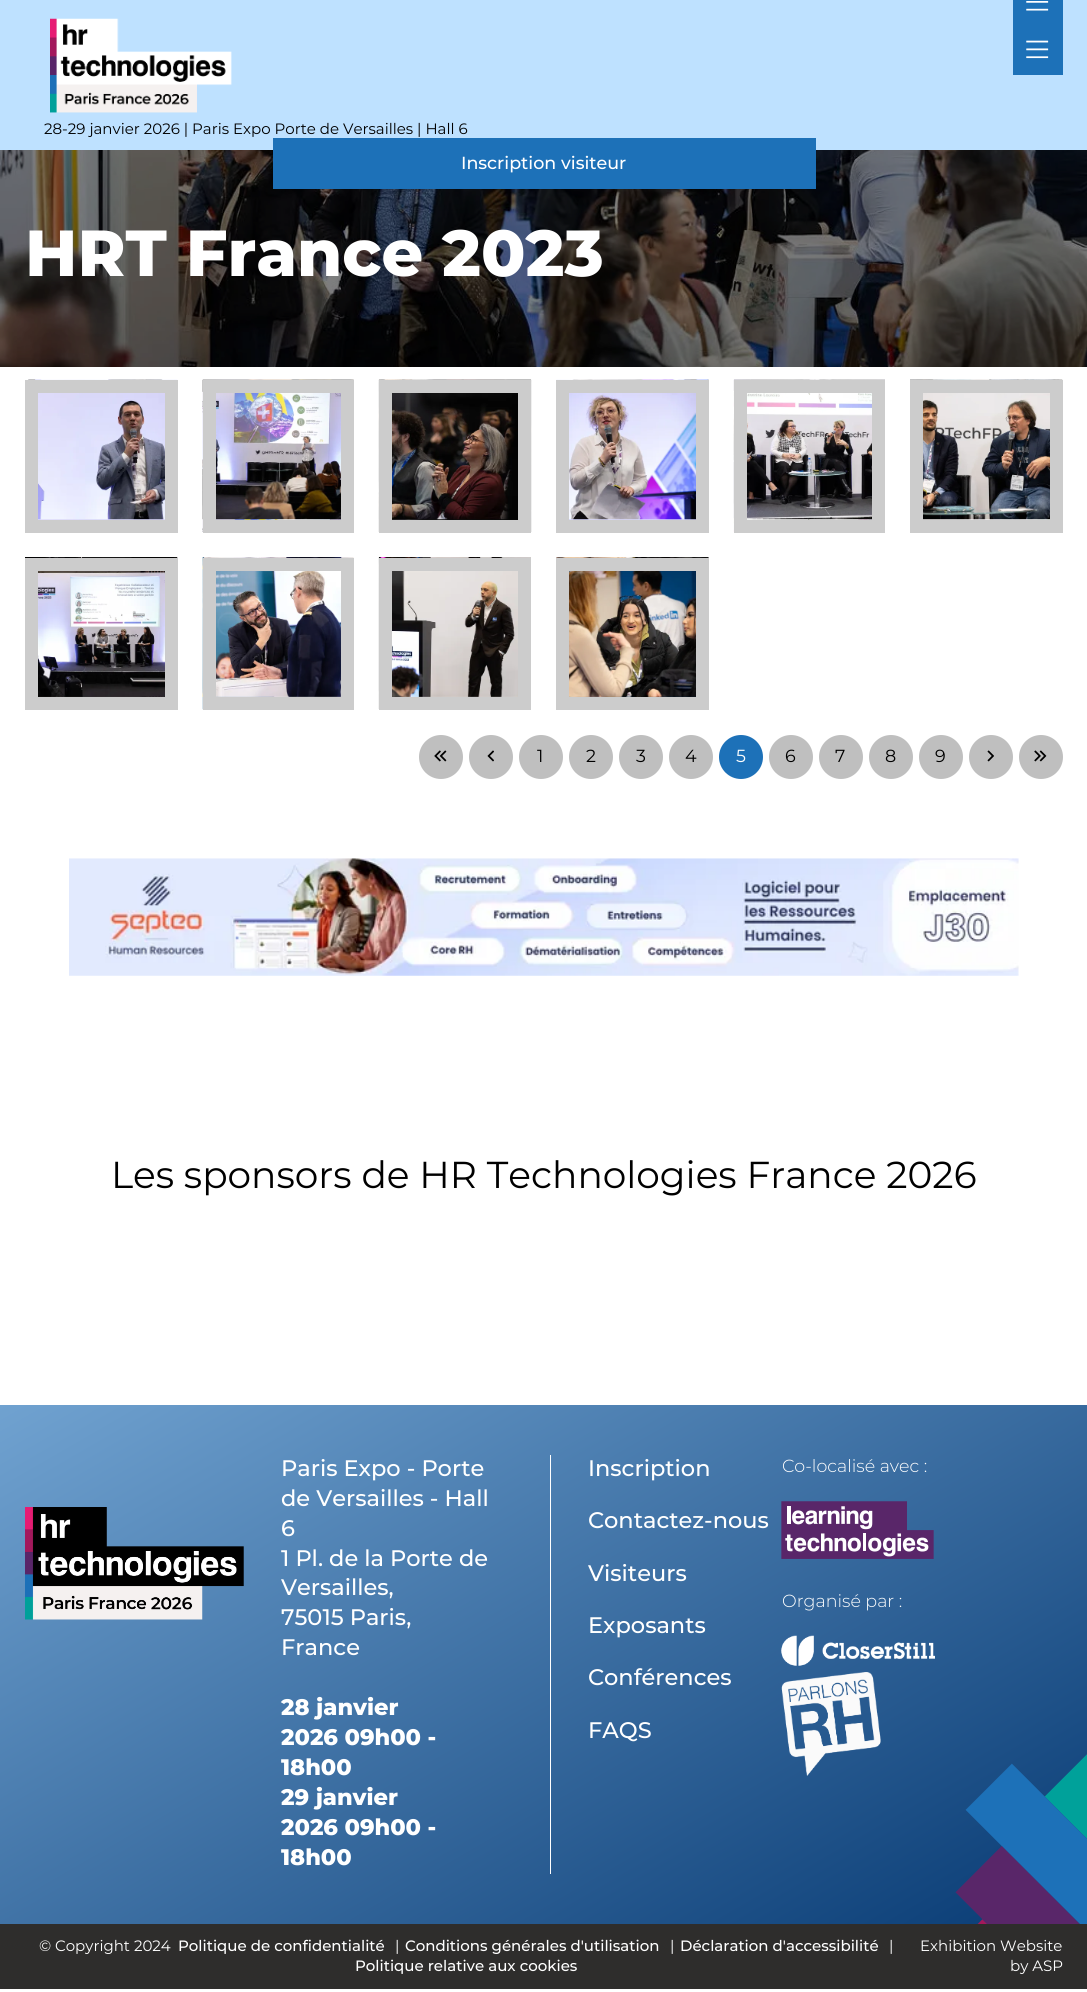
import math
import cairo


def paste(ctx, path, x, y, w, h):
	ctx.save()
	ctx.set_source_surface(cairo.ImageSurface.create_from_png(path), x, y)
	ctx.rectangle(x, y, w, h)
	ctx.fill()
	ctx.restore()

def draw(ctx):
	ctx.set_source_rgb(1, 1, 1)
	ctx.paint()
	ctx.set_source_rgb(0.745, 0.882, 1)
	ctx.rectangle(0, 0, 1087, 150)
	ctx.fill()
	ctx.set_source_rgb(0.114, 0.443, 0.722)
	ctx.rectangle(1013, 0, 50, 75)
	ctx.fill()
	paste(ctx, 'media/1.png', 1026, 1, 23, 10)
	paste(ctx, 'media/2.png', 50, 18, 182, 95)
	paste(ctx, 'media/3.png', 1026, 40, 23, 19)
	ctx.select_font_face('Montserrat')
	ctx.set_font_size(15)
	ctx.set_source_rgb(0, 0, 0)
	ctx.move_to(44, 134)
	ctx.show_text('28-29 janvier 2026 | Paris Expo Porte de Versailles | Hall 6')
	paste(ctx, 'media/4.png', 0, 150, 1087, 217)
	ctx.set_source_rgb(0.114, 0.443, 0.722)
	ctx.rectangle(273, 138, 543, 51)
	ctx.fill()
	ctx.select_font_face('Montserrat Medium')
	ctx.set_font_size(17.5)
	ctx.set_source_rgb(1, 1, 1)
	ctx.move_to(461, 169)
	ctx.show_text('Inscription visiteur')
	ctx.select_font_face('Montserrat ExtraBold')
	ctx.set_font_size(65)
	ctx.move_to(25, 276)
	ctx.show_text('HRT France 2023')
	paste(ctx, 'media/5.png', 25, 379, 153, 141)
	ctx.rectangle(31.5, 386.5, 140, 140)
	ctx.set_source_rgb(0.8, 0.8, 0.8)
	ctx.set_line_width(13)
	ctx.stroke()
	paste(ctx, 'media/6.png', 202, 379, 152, 153)
	ctx.rectangle(209.5, 386.5, 138, 140)
	ctx.stroke()
	paste(ctx, 'media/7.png', 378, 379, 154, 153)
	ctx.rectangle(385.5, 386.5, 139, 140)
	ctx.stroke()
	paste(ctx, 'media/8.png', 556, 379, 153, 141)
	ctx.rectangle(562.5, 386.5, 140, 140)
	ctx.stroke()
	paste(ctx, 'media/9.png', 733, 379, 152, 153)
	ctx.rectangle(740.5, 386.5, 138, 140)
	ctx.stroke()
	paste(ctx, 'media/10.png', 910, 379, 153, 141)
	ctx.rectangle(916.5, 386.5, 140, 140)
	ctx.stroke()
	paste(ctx, 'media/11.png', 25, 557, 153, 140)
	ctx.rectangle(31.5, 564.5, 140, 139)
	ctx.stroke()
	paste(ctx, 'media/12.png', 202, 557, 152, 153)
	ctx.rectangle(209.5, 564.5, 138, 139)
	ctx.stroke()
	paste(ctx, 'media/13.png', 378, 557, 153, 152)
	ctx.rectangle(385.5, 564.5, 139, 139)
	ctx.stroke()
	paste(ctx, 'media/14.png', 556, 557, 153, 140)
	ctx.rectangle(562.5, 564.5, 140, 139)
	ctx.stroke()
	ctx.set_source_rgb(0.749, 0.749, 0.749)
	ctx.arc(441, 757, 22, 0, 2 * math.pi)
	ctx.fill()
	paste(ctx, 'media/15.png', 434, 750, 13, 12)
	ctx.arc(491, 757, 22, 0, 2 * math.pi)
	ctx.fill()
	paste(ctx, 'media/16.png', 487, 750, 7, 12)
	ctx.arc(541, 757, 22, 0, 2 * math.pi)
	ctx.fill()
	ctx.select_font_face('Montserrat')
	ctx.set_font_size(17.5)
	ctx.set_source_rgb(0, 0, 0)
	ctx.move_to(537, 762)
	ctx.show_text('1')
	ctx.set_source_rgb(0.749, 0.749, 0.749)
	ctx.new_path()
	ctx.arc(591, 757, 22, 0, 2 * math.pi)
	ctx.fill()
	ctx.set_source_rgb(0, 0, 0)
	ctx.move_to(586, 762)
	ctx.show_text('2')
	ctx.set_source_rgb(0.749, 0.749, 0.749)
	ctx.new_path()
	ctx.arc(641, 757, 22, 0, 2 * math.pi)
	ctx.fill()
	ctx.set_source_rgb(0, 0, 0)
	ctx.move_to(636, 762)
	ctx.show_text('3')
	ctx.set_source_rgb(0.749, 0.749, 0.749)
	ctx.new_path()
	ctx.arc(691, 757, 22, 0, 2 * math.pi)
	ctx.fill()
	ctx.set_source_rgb(0, 0, 0)
	ctx.move_to(685, 762)
	ctx.show_text('4')
	ctx.set_source_rgb(0.114, 0.443, 0.722)
	ctx.new_path()
	ctx.arc(741, 757, 22, 0, 2 * math.pi)
	ctx.fill()
	ctx.set_source_rgb(1, 1, 1)
	ctx.move_to(736, 762)
	ctx.show_text('5')
	ctx.set_source_rgb(0.749, 0.749, 0.749)
	ctx.new_path()
	ctx.arc(791, 757, 22, 0, 2 * math.pi)
	ctx.fill()
	ctx.set_source_rgb(0, 0, 0)
	ctx.move_to(785, 762)
	ctx.show_text('6')
	ctx.set_source_rgb(0.749, 0.749, 0.749)
	ctx.new_path()
	ctx.arc(841, 757, 22, 0, 2 * math.pi)
	ctx.fill()
	ctx.set_source_rgb(0, 0, 0)
	ctx.move_to(835, 762)
	ctx.show_text('7')
	ctx.set_source_rgb(0.749, 0.749, 0.749)
	ctx.new_path()
	ctx.arc(891, 757, 22, 0, 2 * math.pi)
	ctx.fill()
	ctx.set_source_rgb(0, 0, 0)
	ctx.move_to(885, 762)
	ctx.show_text('8')
	ctx.set_source_rgb(0.749, 0.749, 0.749)
	ctx.new_path()
	ctx.arc(941, 757, 22, 0, 2 * math.pi)
	ctx.fill()
	ctx.set_source_rgb(0, 0, 0)
	ctx.move_to(935, 762)
	ctx.show_text('9')
	ctx.set_source_rgb(0.749, 0.749, 0.749)
	ctx.new_path()
	ctx.arc(991, 757, 22, 0, 2 * math.pi)
	ctx.fill()
	paste(ctx, 'media/17.png', 987, 750, 7, 12)
	ctx.arc(1041, 757, 22, 0, 2 * math.pi)
	ctx.fill()
	paste(ctx, 'media/18.png', 1034, 750, 13, 12)
	paste(ctx, 'media/19.png', 69, 858, 950, 118)
	ctx.set_font_size(37.5)
	ctx.set_source_rgb(0, 0, 0)
	ctx.move_to(111, 1188)
	ctx.show_text('Les sponsors de HR Technologies France 2026')
	gradient = cairo.LinearGradient(792, 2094, 295, 1234)
	gradient.add_color_stop_rgba(0, 0.031, 0.231, 0.455, 1)
	gradient.add_color_stop_rgba(1, 0.439, 0.635, 0.816, 1)
	ctx.set_source(gradient)
	ctx.rectangle(0, 1405, 1087, 519)
	ctx.fill()
	paste(ctx, 'media/20.png', 25, 1507, 219, 113)
	ctx.set_source_rgb(1, 1, 1)
	ctx.rectangle(550, 1455, 1, 419)
	ctx.fill()
	ctx.select_font_face('Montserrat Medium')
	ctx.set_font_size(22.5)
	for x, y, s in [
		(281, 1476, 'Paris Expo - Porte'),
		(281, 1506, 'de Versailles - Hall'),
		(281, 1536, '6'),
		(281, 1566, '1 Pl. de la Porte de'),
		(281, 1595, 'Versailles,'),
		(281, 1625, '75015 Paris,'),
		(281, 1655, 'France'),
	]:
		ctx.move_to(x, y)
		ctx.show_text(s)
	ctx.select_font_face('Montserrat ExtraBold')
	for x, y, s in [
		(281, 1715, '28 janvier'),
		(281, 1745, '2026 09h00 -'),
		(281, 1775, '18h00'),
		(281, 1805, '29 janvier'),
		(281, 1835, '2026 09h00 -'),
		(281, 1865, '18h00'),
	]:
		ctx.move_to(x, y)
		ctx.show_text(s)
	ctx.select_font_face('Montserrat Medium')
	for x, y, s in [
		(588, 1476, 'Inscription'),
		(588, 1528, 'Contactez-nous'),
		(588, 1581, 'Visiteurs'),
		(588, 1633, 'Exposants'),
		(588, 1685, 'Conférences'),
		(588, 1738, 'FAQS'),
	]:
		ctx.move_to(x, y)
		ctx.show_text(s)
	ctx.select_font_face('Montserrat Light')
	ctx.set_font_size(17.5)
	ctx.move_to(782, 1472)
	ctx.show_text('Co-localisé avec :')
	paste(ctx, 'media/21.png', 781, 1501, 153, 58)
	ctx.move_to(782, 1607)
	ctx.show_text('Organisé par :')
	paste(ctx, 'media/22.png', 781, 1635, 154, 31)
	paste(ctx, 'media/23.png', 781, 1672, 100, 104)
	paste(ctx, 'media/24.png', 955, 1754, 132, 170)
	ctx.set_source_rgb(0.18, 0.176, 0.173)
	ctx.rectangle(0, 1924, 1087, 65)
	ctx.fill()
	ctx.select_font_face('Montserrat')
	ctx.set_font_size(15)
	ctx.set_source_rgb(1, 1, 1)
	ctx.move_to(39, 1951)
	ctx.show_text('© Copyright 2024')
	ctx.select_font_face('Montserrat Medium')
	ctx.move_to(178, 1951)
	ctx.show_text('Politique de confidentialité')
	ctx.select_font_face('Montserrat')
	ctx.move_to(395, 1951)
	ctx.show_text('|')
	ctx.select_font_face('Montserrat Medium')
	ctx.move_to(405, 1951)
	ctx.show_text('Conditions générales d\'utilisation')
	ctx.select_font_face('Montserrat')
	ctx.move_to(670, 1951)
	ctx.show_text('|')
	ctx.select_font_face('Montserrat Medium')
	ctx.move_to(680, 1951)
	ctx.show_text('Déclaration d\'accessibilité')
	ctx.select_font_face('Montserrat')
	ctx.move_to(889, 1951)
	ctx.show_text('|')
	ctx.select_font_face('Montserrat Medium')
	ctx.move_to(355, 1971)
	ctx.show_text('Politique relative aux cookies')
	ctx.select_font_face('Montserrat')
	ctx.move_to(920, 1951)
	ctx.show_text('Exhibition Website')
	ctx.move_to(1010, 1971)
	ctx.show_text('by ASP')


surface = cairo.ImageSurface(cairo.FORMAT_RGB24, 1087, 1992)
ctx = cairo.Context(surface)
options = cairo.FontOptions()
options.set_hint_metrics(cairo.HINT_METRICS_OFF)
options.set_hint_style(cairo.HINT_STYLE_NONE)
ctx.set_font_options(options)
ctx.set_miter_limit(4)
draw(ctx)
surface.write_to_png('image.png')
